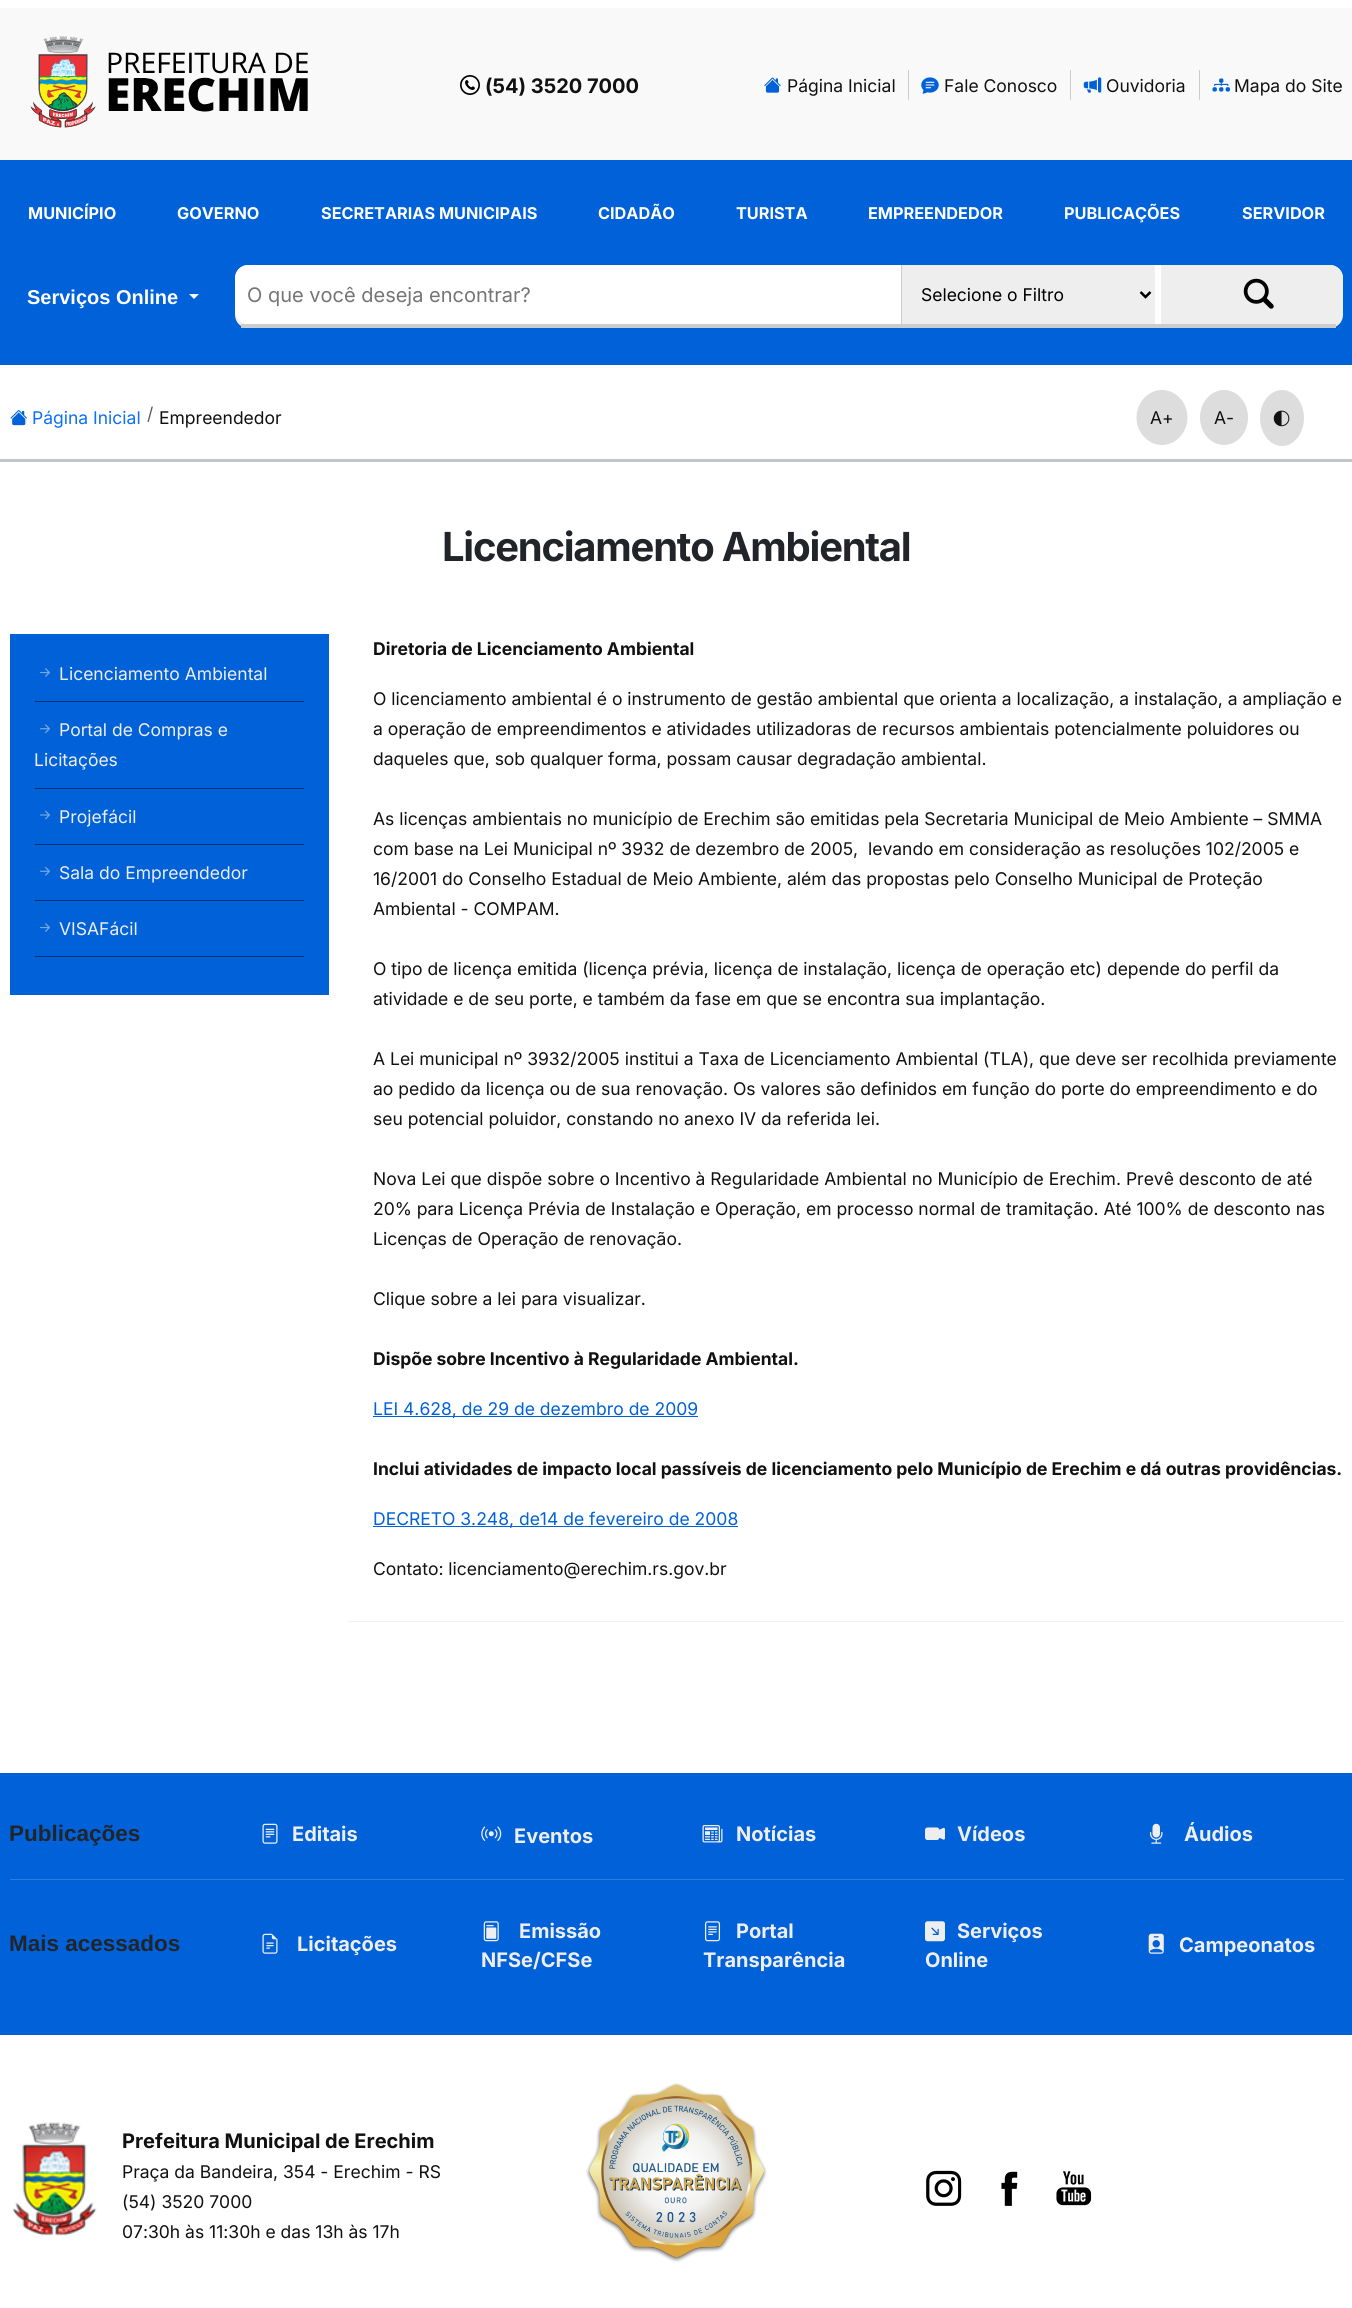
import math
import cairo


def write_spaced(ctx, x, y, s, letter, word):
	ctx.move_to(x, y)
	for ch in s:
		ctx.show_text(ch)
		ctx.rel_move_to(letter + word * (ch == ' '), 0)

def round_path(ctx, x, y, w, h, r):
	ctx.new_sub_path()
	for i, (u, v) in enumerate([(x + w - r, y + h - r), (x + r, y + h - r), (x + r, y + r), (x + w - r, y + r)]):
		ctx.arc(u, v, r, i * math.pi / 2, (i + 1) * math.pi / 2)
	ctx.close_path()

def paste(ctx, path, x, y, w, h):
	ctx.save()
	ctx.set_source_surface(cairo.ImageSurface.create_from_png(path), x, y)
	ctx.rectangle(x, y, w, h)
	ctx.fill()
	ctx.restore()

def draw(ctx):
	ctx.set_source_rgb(1, 1, 1)
	ctx.paint()
	ctx.set_source_rgb(0.973, 0.976, 0.98)
	ctx.rectangle(0, 8, 1352, 152)
	ctx.fill()
	paste(ctx, 'media/1.png', 30, 36, 278, 92)
	paste(ctx, 'media/2.png', 460, 75, 20, 20)
	ctx.select_font_face('Inter', cairo.FONT_SLANT_NORMAL, cairo.FONT_WEIGHT_BOLD)
	ctx.set_font_size(20)
	ctx.set_source_rgb(0.067, 0.067, 0.067)
	ctx.move_to(485, 93)
	ctx.show_text('(54) 3520 7000')
	ctx.set_source_rgb(0.8, 0.8, 0.8)
	ctx.rectangle(908, 70, 1, 30)
	ctx.fill()
	paste(ctx, 'media/3.png', 764, 77, 17, 16)
	ctx.select_font_face('Inter')
	ctx.set_font_size(17.5)
	ctx.set_source_rgb(0.067, 0.067, 0.067)
	ctx.move_to(787, 92)
	ctx.show_text('Página Inicial')
	ctx.set_source_rgb(0.8, 0.8, 0.8)
	ctx.rectangle(1070, 70, 1, 30)
	ctx.fill()
	paste(ctx, 'media/4.png', 921, 77, 18, 17)
	ctx.set_source_rgb(0.067, 0.067, 0.067)
	ctx.move_to(944, 92)
	ctx.show_text('Fale Conosco')
	ctx.set_source_rgb(0.8, 0.8, 0.8)
	ctx.rectangle(1199, 70, 1, 30)
	ctx.fill()
	paste(ctx, 'media/5.png', 1083, 77, 19, 16)
	ctx.set_source_rgb(0.067, 0.067, 0.067)
	ctx.move_to(1106, 92)
	ctx.show_text('Ouvidoria')
	paste(ctx, 'media/6.png', 1212, 78, 18, 14)
	ctx.move_to(1234, 92)
	ctx.show_text('Mapa do Site')
	ctx.set_source_rgb(0, 0.38, 0.851)
	ctx.rectangle(0, 160, 1352, 205)
	ctx.fill()
	ctx.select_font_face('Inter', cairo.FONT_SLANT_NORMAL, cairo.FONT_WEIGHT_BOLD)
	ctx.set_font_size(16.25)
	ctx.set_source_rgb(1, 1, 1)
	for x, y, s in [
		(28, 219, 'MUNICÍPIO'),
		(177, 219, 'GOVERNO'),
		(321, 219, 'SECRETARIAS MUNICIPAIS'),
		(598, 219, 'CIDADÃO'),
		(736, 219, 'TURISTA'),
		(868, 219, 'EMPREENDEDOR'),
		(1064, 219, 'PUBLICAÇÕES'),
		(1242, 219, 'SERVIDOR'),
	]:
		ctx.move_to(x, y)
		ctx.show_text(s)
	ctx.select_font_face('Liberation Sans', cairo.FONT_SLANT_NORMAL, cairo.FONT_WEIGHT_BOLD)
	ctx.set_font_size(20)
	ctx.move_to(27, 304)
	ctx.show_text('Serviços Online')
	ctx.new_path()
	ctx.move_to(189, 294)
	ctx.line_to(199, 294)
	ctx.line_to(194, 299)
	ctx.close_path()
	ctx.fill()
	ctx.set_source_rgb(0.933, 0.933, 0.933)
	round_path(ctx, 235, 265, 1108, 63, 13)
	ctx.fill()
	ctx.set_source_rgb(0.8, 0.8, 0.8)
	ctx.rectangle(241, 324, 1095, 4)
	ctx.fill()
	ctx.set_source_rgb(1, 1, 1)
	ctx.new_path()
	ctx.move_to(248, 265)
	ctx.line_to(901, 265)
	ctx.line_to(901, 324)
	ctx.line_to(248, 324)
	ctx.curve_to(241, 324, 235, 318, 235, 311)
	ctx.line_to(235, 278)
	ctx.curve_to(235, 271, 241, 265, 248, 265)
	ctx.close_path()
	ctx.fill()
	ctx.select_font_face('Inter')
	ctx.set_source_rgb(0.459, 0.459, 0.459)
	ctx.move_to(247, 302)
	ctx.show_text('O que você deseja encontrar?')
	ctx.set_source_rgb(1, 1, 1)
	ctx.rectangle(1155, 265, 6, 59)
	ctx.fill()
	ctx.set_source_rgb(0.8, 0.8, 0.8)
	ctx.rectangle(901, 265, 1, 59)
	ctx.fill()
	ctx.new_path()
	ctx.move_to(1140.5, 292)
	ctx.line_to(1145.5, 297)
	ctx.line_to(1150.5, 292)
	ctx.set_source_rgb(0, 0, 0)
	ctx.set_line_width(2.5)
	ctx.stroke()
	ctx.set_font_size(17.5)
	ctx.move_to(921, 301)
	ctx.show_text('Selecione o Filtro')
	ctx.set_source_rgb(0.933, 0.933, 0.933)
	ctx.new_path()
	ctx.move_to(1174, 265)
	ctx.line_to(1330, 265)
	ctx.curve_to(1337, 265, 1343, 271, 1343, 278)
	ctx.line_to(1343, 311)
	ctx.curve_to(1343, 318, 1337, 324, 1330, 324)
	ctx.line_to(1174, 324)
	ctx.close_path()
	ctx.fill()
	paste(ctx, 'media/7.png', 1243, 278, 31, 31)
	ctx.set_source_rgb(0.757, 0.776, 0.784)
	ctx.rectangle(0, 459, 1352, 3)
	ctx.fill()
	paste(ctx, 'media/8.png', 10, 410, 17, 16)
	ctx.set_source_rgb(0.051, 0.431, 0.992)
	ctx.move_to(32, 424)
	ctx.show_text('Página Inicial')
	ctx.set_source_rgb(0.349, 0.361, 0.373)
	ctx.move_to(147, 420)
	ctx.show_text('/')
	ctx.set_source_rgb(0.067, 0.067, 0.067)
	ctx.move_to(159, 424)
	ctx.show_text('Empreendedor')
	ctx.set_source_rgb(0.867, 0.867, 0.867)
	ctx.new_path()
	ctx.move_to(1162, 390)
	ctx.curve_to(1176, 390, 1187.5, 402.5, 1187.5, 417.5)
	ctx.curve_to(1187.5, 432.5, 1176, 445, 1162, 445)
	ctx.curve_to(1148, 445, 1136.5, 432.5, 1136.5, 417.5)
	ctx.curve_to(1136.5, 402.5, 1148, 390, 1162, 390)
	ctx.close_path()
	ctx.fill()
	ctx.set_source_rgb(0.067, 0.067, 0.067)
	ctx.move_to(1150, 424)
	ctx.show_text('A+')
	ctx.set_source_rgb(0.867, 0.867, 0.867)
	ctx.new_path()
	ctx.move_to(1224, 390)
	ctx.curve_to(1237.5, 390, 1248, 402.5, 1248, 417.5)
	ctx.curve_to(1248, 432.5, 1237.5, 445, 1224, 445)
	ctx.curve_to(1210.5, 445, 1200, 432.5, 1200, 417.5)
	ctx.curve_to(1200, 402.5, 1210.5, 390, 1224, 390)
	ctx.close_path()
	ctx.fill()
	ctx.set_source_rgb(0.067, 0.067, 0.067)
	ctx.move_to(1214, 424)
	ctx.show_text('A-')
	ctx.set_source_rgb(0.867, 0.867, 0.867)
	ctx.new_path()
	ctx.move_to(1282, 390)
	ctx.curve_to(1294, 390, 1304, 402.5, 1304, 418)
	ctx.curve_to(1304, 433.5, 1294, 446, 1282, 446)
	ctx.curve_to(1270, 446, 1260, 433.5, 1260, 418)
	ctx.curve_to(1260, 402.5, 1270, 390, 1282, 390)
	ctx.close_path()
	ctx.fill()
	paste(ctx, 'media/9.png', 1273, 410, 17, 17)
	ctx.select_font_face('Inter', cairo.FONT_SLANT_NORMAL, cairo.FONT_WEIGHT_BOLD)
	ctx.set_font_size(40)
	ctx.set_source_rgb(0.129, 0.145, 0.161)
	write_spaced(ctx, 442, 561, 'Licenciamento Ambiental', -1.25, 0)
	ctx.set_source_rgb(0, 0.38, 0.851)
	ctx.rectangle(10, 634, 319, 361)
	ctx.fill()
	ctx.set_source_rgb(0, 0.192, 0.427)
	ctx.rectangle(35, 701, 269, 1)
	ctx.fill()
	paste(ctx, 'media/10.png', 40, 668, 10, 9)
	ctx.select_font_face('Inter')
	ctx.set_font_size(17.5)
	ctx.set_source_rgb(0.933, 0.933, 0.933)
	ctx.move_to(59, 680)
	ctx.show_text('Licenciamento Ambiental')
	ctx.set_source_rgb(0, 0.192, 0.427)
	ctx.rectangle(35, 788, 269, 1)
	ctx.fill()
	paste(ctx, 'media/11.png', 40, 724, 10, 10)
	ctx.set_source_rgb(0.933, 0.933, 0.933)
	ctx.move_to(59, 736)
	ctx.show_text('Portal de Compras e')
	ctx.move_to(34, 766)
	ctx.show_text('Licitações')
	ctx.set_source_rgb(0, 0.192, 0.427)
	ctx.rectangle(35, 844, 269, 1)
	ctx.fill()
	paste(ctx, 'media/12.png', 40, 810, 10, 10)
	ctx.set_source_rgb(0.933, 0.933, 0.933)
	ctx.move_to(59, 823)
	ctx.show_text('Projefácil')
	ctx.set_source_rgb(0, 0.192, 0.427)
	ctx.rectangle(35, 900, 269, 1)
	ctx.fill()
	paste(ctx, 'media/13.png', 40, 866, 10, 10)
	ctx.set_source_rgb(0.933, 0.933, 0.933)
	ctx.move_to(59, 879)
	ctx.show_text('Sala do Empreendedor')
	ctx.set_source_rgb(0, 0.192, 0.427)
	ctx.rectangle(35, 956, 269, 1)
	ctx.fill()
	paste(ctx, 'media/10.png', 40, 923, 10, 9)
	ctx.set_source_rgb(0.933, 0.933, 0.933)
	ctx.move_to(59, 935)
	ctx.show_text('VISAFácil')
	ctx.select_font_face('Inter', cairo.FONT_SLANT_NORMAL, cairo.FONT_WEIGHT_BOLD)
	ctx.set_source_rgb(0.067, 0.067, 0.067)
	ctx.move_to(373, 655)
	ctx.show_text('Diretoria de Licenciamento Ambiental')
	ctx.select_font_face('Inter')
	for x, y, s in [
		(373, 705, 'O licenciamento ambiental é o instrumento de gestão ambiental que orienta a localização, a instalação, a ampliação e'),
		(373, 735, 'a operação de empreendimentos e atividades utilizadoras de recursos ambientais potencialmente poluidores ou'),
		(373, 765, 'daqueles que, sob qualquer forma, possam causar degradação ambiental.'),
		(373, 825, 'As licenças ambientais no município de Erechim são emitidas pela Secretaria Municipal de Meio Ambiente – SMMA'),
		(373, 855, 'com base na Lei Municipal nº 3932 de dezembro de 2005,  levando em consideração as resoluções 102/2005 e'),
		(373, 885, '16/2001 do Conselho Estadual de Meio Ambiente, além das propostas pelo Conselho Municipal de Proteção'),
		(373, 915, 'Ambiental - COMPAM.'),
		(373, 975, 'O tipo de licença emitida (licença prévia, licença de instalação, licença de operação etc) depende do perfil da'),
		(373, 1005, 'atividade e de seu porte, e também da fase em que se encontra sua implantação.'),
		(373, 1065, 'A Lei municipal nº 3932/2005 institui a Taxa de Licenciamento Ambiental (TLA), que deve ser recolhida previamente'),
		(373, 1095, 'ao pedido da licença ou de sua renovação. Os valores são definidos em função do porte do empreendimento e do'),
		(373, 1125, 'seu potencial poluidor, constando no anexo IV da referida lei.'),
		(373, 1185, 'Nova Lei que dispõe sobre o Incentivo à Regularidade Ambiental no Município de Erechim. Prevê desconto de até'),
		(373, 1215, '20% para Licença Prévia de Instalação e Operação, em processo normal de tramitação. Até 100% de desconto nas'),
		(373, 1245, 'Licenças de Operação de renovação.'),
		(373, 1305, 'Clique sobre a lei para visualizar.'),
	]:
		ctx.move_to(x, y)
		ctx.show_text(s)
	ctx.select_font_face('Inter', cairo.FONT_SLANT_NORMAL, cairo.FONT_WEIGHT_BOLD)
	ctx.move_to(373, 1365)
	ctx.show_text('Dispõe sobre Incentivo à Regularidade Ambiental.')
	ctx.set_source_rgb(0, 0.38, 0.851)
	ctx.rectangle(373, 1416, 325, 1)
	ctx.fill()
	ctx.select_font_face('Inter')
	ctx.move_to(373, 1415)
	ctx.show_text('LEI 4.628, de 29 de dezembro de 2009')
	ctx.select_font_face('Inter', cairo.FONT_SLANT_NORMAL, cairo.FONT_WEIGHT_BOLD)
	ctx.set_source_rgb(0.067, 0.067, 0.067)
	ctx.move_to(373, 1475)
	ctx.show_text('Inclui atividades de impacto local passíveis de licenciamento pelo Município de Erechim e dá outras providências.')
	ctx.set_source_rgb(0, 0.38, 0.851)
	ctx.rectangle(373, 1526, 365, 1)
	ctx.fill()
	ctx.select_font_face('Inter')
	ctx.move_to(373, 1525)
	ctx.show_text('DECRETO 3.248, de14 de fevereiro de 2008')
	ctx.set_source_rgb(0.067, 0.067, 0.067)
	ctx.move_to(373, 1575)
	ctx.show_text('Contato: licenciamento@erechim.rs.gov.br')
	ctx.set_source_rgb(0.949, 0.949, 0.949)
	ctx.rectangle(348, 1621, 996, 1)
	ctx.fill()
	ctx.set_source_rgb(0, 0.38, 0.851)
	ctx.rectangle(0, 1773, 1352, 262)
	ctx.fill()
	ctx.select_font_face('Liberation Sans', cairo.FONT_SLANT_NORMAL, cairo.FONT_WEIGHT_BOLD)
	ctx.set_font_size(22.5)
	ctx.set_source_rgb(0.129, 0.145, 0.161)
	ctx.move_to(9, 1841)
	ctx.show_text('Publicações')
	paste(ctx, 'media/14.png', 262, 1823, 16, 21)
	ctx.select_font_face('Inter', cairo.FONT_SLANT_NORMAL, cairo.FONT_WEIGHT_BOLD)
	ctx.set_font_size(20)
	ctx.set_source_rgb(0.933, 0.933, 0.933)
	ctx.move_to(292, 1841)
	ctx.show_text('Editais')
	paste(ctx, 'media/15.png', 481, 1826, 21, 15)
	ctx.move_to(514, 1843)
	ctx.show_text('Eventos')
	paste(ctx, 'media/16.png', 702, 1825, 21, 18)
	ctx.move_to(736, 1841)
	ctx.show_text('Notícias')
	paste(ctx, 'media/17.png', 925, 1827, 20, 13)
	ctx.move_to(957, 1841)
	ctx.show_text('Vídeos')
	paste(ctx, 'media/18.png', 1150, 1823, 13, 21)
	ctx.move_to(1184, 1841)
	ctx.show_text('Áudios')
	ctx.set_source_rgb(0.2, 0.486, 0.839)
	ctx.rectangle(10, 1879, 1334, 1)
	ctx.fill()
	ctx.select_font_face('Liberation Sans', cairo.FONT_SLANT_NORMAL, cairo.FONT_WEIGHT_BOLD)
	ctx.set_font_size(22.5)
	ctx.set_source_rgb(0.129, 0.145, 0.161)
	ctx.move_to(9, 1951)
	ctx.show_text('Mais acessados')
	paste(ctx, 'media/19.png', 262, 1933, 16, 21)
	ctx.select_font_face('Inter', cairo.FONT_SLANT_NORMAL, cairo.FONT_WEIGHT_BOLD)
	ctx.set_font_size(20)
	ctx.set_source_rgb(0.933, 0.933, 0.933)
	ctx.move_to(297, 1951)
	ctx.show_text('Licitações')
	paste(ctx, 'media/20.png', 483, 1921, 16, 21)
	ctx.move_to(519, 1938)
	ctx.show_text('Emissão')
	ctx.move_to(481, 1967)
	ctx.show_text('NFSe/CFSe')
	paste(ctx, 'media/21.png', 704, 1921, 17, 21)
	ctx.move_to(736, 1938)
	ctx.show_text('Portal')
	ctx.move_to(703, 1967)
	ctx.show_text('Transparência')
	paste(ctx, 'media/22.png', 925, 1921, 20, 21)
	ctx.move_to(957, 1938)
	ctx.show_text('Serviços')
	ctx.move_to(925, 1967)
	ctx.show_text('Online')
	paste(ctx, 'media/23.png', 1148, 1933, 16, 21)
	ctx.move_to(1179, 1952)
	ctx.show_text('Campeonatos')
	paste(ctx, 'media/24.png', 12, 2122, 85, 114)
	ctx.set_source_rgb(0.067, 0.067, 0.067)
	ctx.move_to(122, 2148)
	ctx.show_text('Prefeitura Municipal de Erechim')
	ctx.select_font_face('Inter')
	ctx.set_font_size(17.5)
	for x, y, s in [
		(122, 2178, 'Praça da Bandeira, 354 - Erechim - RS'),
		(122, 2208, '(54) 3520 7000'),
		(122, 2238, '07:30h às 11:30h e das 13h às 17h'),
	]:
		ctx.move_to(x, y)
		ctx.show_text(s)
	paste(ctx, 'media/25.png', 586, 2083, 181, 179)
	paste(ctx, 'media/26.png', 926, 2170, 36, 36)
	paste(ctx, 'media/27.png', 1001, 2171, 17, 35)
	paste(ctx, 'media/28.png', 1056, 2171, 36, 35)


surface = cairo.ImageSurface(cairo.FORMAT_RGB24, 1352, 2308)
ctx = cairo.Context(surface)
options = cairo.FontOptions()
options.set_hint_metrics(cairo.HINT_METRICS_OFF)
options.set_hint_style(cairo.HINT_STYLE_NONE)
ctx.set_font_options(options)
ctx.set_miter_limit(4)
draw(ctx)
surface.write_to_png('image.png')
